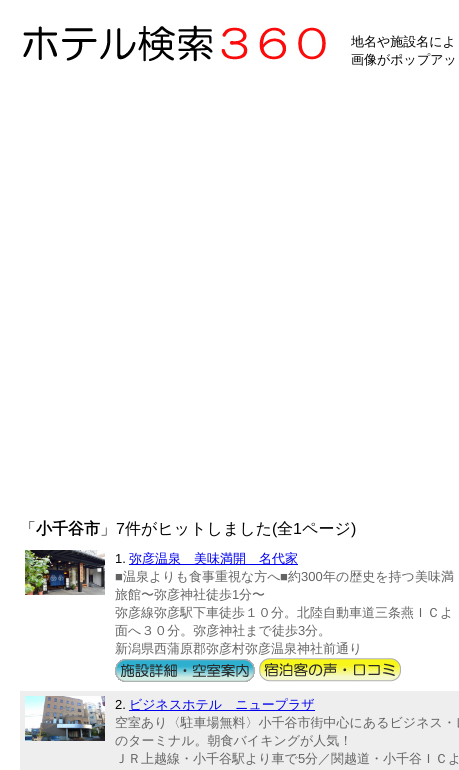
import math
import cairo


def paste(ctx, path, x, y, w, h):
	ctx.save()
	ctx.set_source_surface(cairo.ImageSurface.create_from_png(path), x, y)
	ctx.rectangle(x, y, w, h)
	ctx.fill()
	ctx.restore()

def draw(ctx):
	ctx.set_source_rgb(1, 1, 1)
	ctx.paint()
	paste(ctx, 'media/1.png', 23, 25, 303, 38)
	ctx.select_font_face('WenQuanYi Zen Hei Medium')
	ctx.set_font_size(13)
	ctx.set_source_rgb(0, 0, 0)
	ctx.move_to(351, 46)
	ctx.show_text('地名や施設名によ')
	ctx.move_to(351, 64)
	ctx.show_text('画像がポップアッ')
	ctx.set_font_size(16)
	ctx.move_to(20, 534)
	ctx.show_text('「')
	ctx.select_font_face('WenQuanYi Zen Hei', cairo.FONT_SLANT_NORMAL, cairo.FONT_WEIGHT_BOLD)
	ctx.move_to(36, 534)
	ctx.show_text('小千谷市')
	ctx.select_font_face('WenQuanYi Zen Hei Medium')
	ctx.move_to(100, 534)
	ctx.show_text('」')
	ctx.select_font_face('Liberation Sans')
	ctx.move_to(116, 534)
	ctx.show_text('7')
	ctx.select_font_face('WenQuanYi Zen Hei Medium')
	ctx.move_to(125, 534)
	ctx.show_text('件がヒットしました')
	ctx.select_font_face('Liberation Sans')
	ctx.move_to(272, 534)
	ctx.show_text('(')
	ctx.select_font_face('WenQuanYi Zen Hei Medium')
	ctx.move_to(277, 534)
	ctx.show_text('全')
	ctx.select_font_face('Liberation Sans')
	ctx.move_to(293, 534)
	ctx.show_text('1')
	ctx.select_font_face('WenQuanYi Zen Hei Medium')
	ctx.move_to(302, 534)
	ctx.show_text('ページ')
	ctx.select_font_face('Liberation Sans')
	ctx.move_to(351, 534)
	ctx.show_text(')')
	paste(ctx, 'media/2.png', 25, 550, 80, 45)
	ctx.set_font_size(13)
	ctx.move_to(115, 563)
	ctx.show_text('1.')
	ctx.set_source_rgb(0, 0, 0.933)
	ctx.rectangle(129, 564, 169, 1)
	ctx.fill()
	ctx.select_font_face('WenQuanYi Zen Hei Medium')
	ctx.move_to(129, 563)
	ctx.show_text('弥彦温泉　美味満開　名代家')
	ctx.select_font_face('Liberation Sans')
	ctx.set_source_rgb(0.388, 0.388, 0.388)
	ctx.move_to(115, 581)
	ctx.show_text('■')
	ctx.select_font_face('WenQuanYi Zen Hei Medium')
	ctx.move_to(123, 581)
	ctx.show_text('温泉よりも食事重視な方へ')
	ctx.select_font_face('Liberation Sans')
	ctx.move_to(280, 581)
	ctx.show_text('■')
	ctx.select_font_face('WenQuanYi Zen Hei Medium')
	ctx.move_to(288, 581)
	ctx.show_text('約')
	ctx.select_font_face('Liberation Sans')
	ctx.move_to(301, 581)
	ctx.show_text('300')
	ctx.select_font_face('WenQuanYi Zen Hei Medium')
	ctx.move_to(323, 581)
	ctx.show_text('年の歴史を持つ美味満')
	ctx.move_to(115, 599)
	ctx.show_text('旅館〜弥彦神社徒歩')
	ctx.select_font_face('Liberation Sans')
	ctx.move_to(232, 599)
	ctx.show_text('1')
	ctx.select_font_face('WenQuanYi Zen Hei Medium')
	for x, y, s in [
		(239, 599, '分〜'),
		(115, 617, '弥彦線弥彦駅下車徒歩１０分。北陸自動車道三条燕ＩＣよ'),
		(115, 635, '面へ３０分。弥彦神社まで徒歩'),
	]:
		ctx.move_to(x, y)
		ctx.show_text(s)
	ctx.select_font_face('Liberation Sans')
	ctx.move_to(298, 635)
	ctx.show_text('3')
	ctx.select_font_face('WenQuanYi Zen Hei Medium')
	ctx.move_to(305, 635)
	ctx.show_text('分。')
	ctx.move_to(115, 653)
	ctx.show_text('新潟県西蒲原郡弥彦村弥彦温泉神社前通り')
	paste(ctx, 'media/3.png', 115, 659, 140, 23)
	paste(ctx, 'media/4.png', 259, 658, 142, 24)
	ctx.set_source_rgb(0.933, 0.933, 0.933)
	ctx.rectangle(20, 691, 439, 79)
	ctx.fill()
	paste(ctx, 'media/5.png', 25, 696, 80, 45)
	ctx.select_font_face('Liberation Sans')
	ctx.set_source_rgb(0, 0, 0)
	ctx.move_to(115, 709)
	ctx.show_text('2.')
	ctx.set_source_rgb(0, 0, 0.933)
	ctx.rectangle(129, 710, 186, 1)
	ctx.fill()
	ctx.select_font_face('WenQuanYi Zen Hei Medium')
	ctx.move_to(129, 709)
	ctx.show_text('ビジネスホテル　ニュープラザ')
	ctx.set_source_rgb(0.388, 0.388, 0.388)
	for x, y, s in [
		(115, 727, '空室あり〈駐車場無料〉小千谷市街中心にあるビジネス・レ'),
		(115, 745, 'のターミナル。朝食バイキングが人気！'),
		(115, 763, 'ＪＲ上越線・小千谷駅より車で'),
	]:
		ctx.move_to(x, y)
		ctx.show_text(s)
	ctx.select_font_face('Liberation Sans')
	ctx.move_to(298, 763)
	ctx.show_text('5')
	ctx.select_font_face('WenQuanYi Zen Hei Medium')
	ctx.move_to(305, 763)
	ctx.show_text('分／関越道・小千谷ＩＣよ')


surface = cairo.ImageSurface(cairo.FORMAT_RGB24, 459, 770)
ctx = cairo.Context(surface)
options = cairo.FontOptions()
options.set_hint_metrics(cairo.HINT_METRICS_OFF)
options.set_hint_style(cairo.HINT_STYLE_NONE)
ctx.set_font_options(options)
ctx.set_miter_limit(4)
draw(ctx)
surface.write_to_png('image.png')
